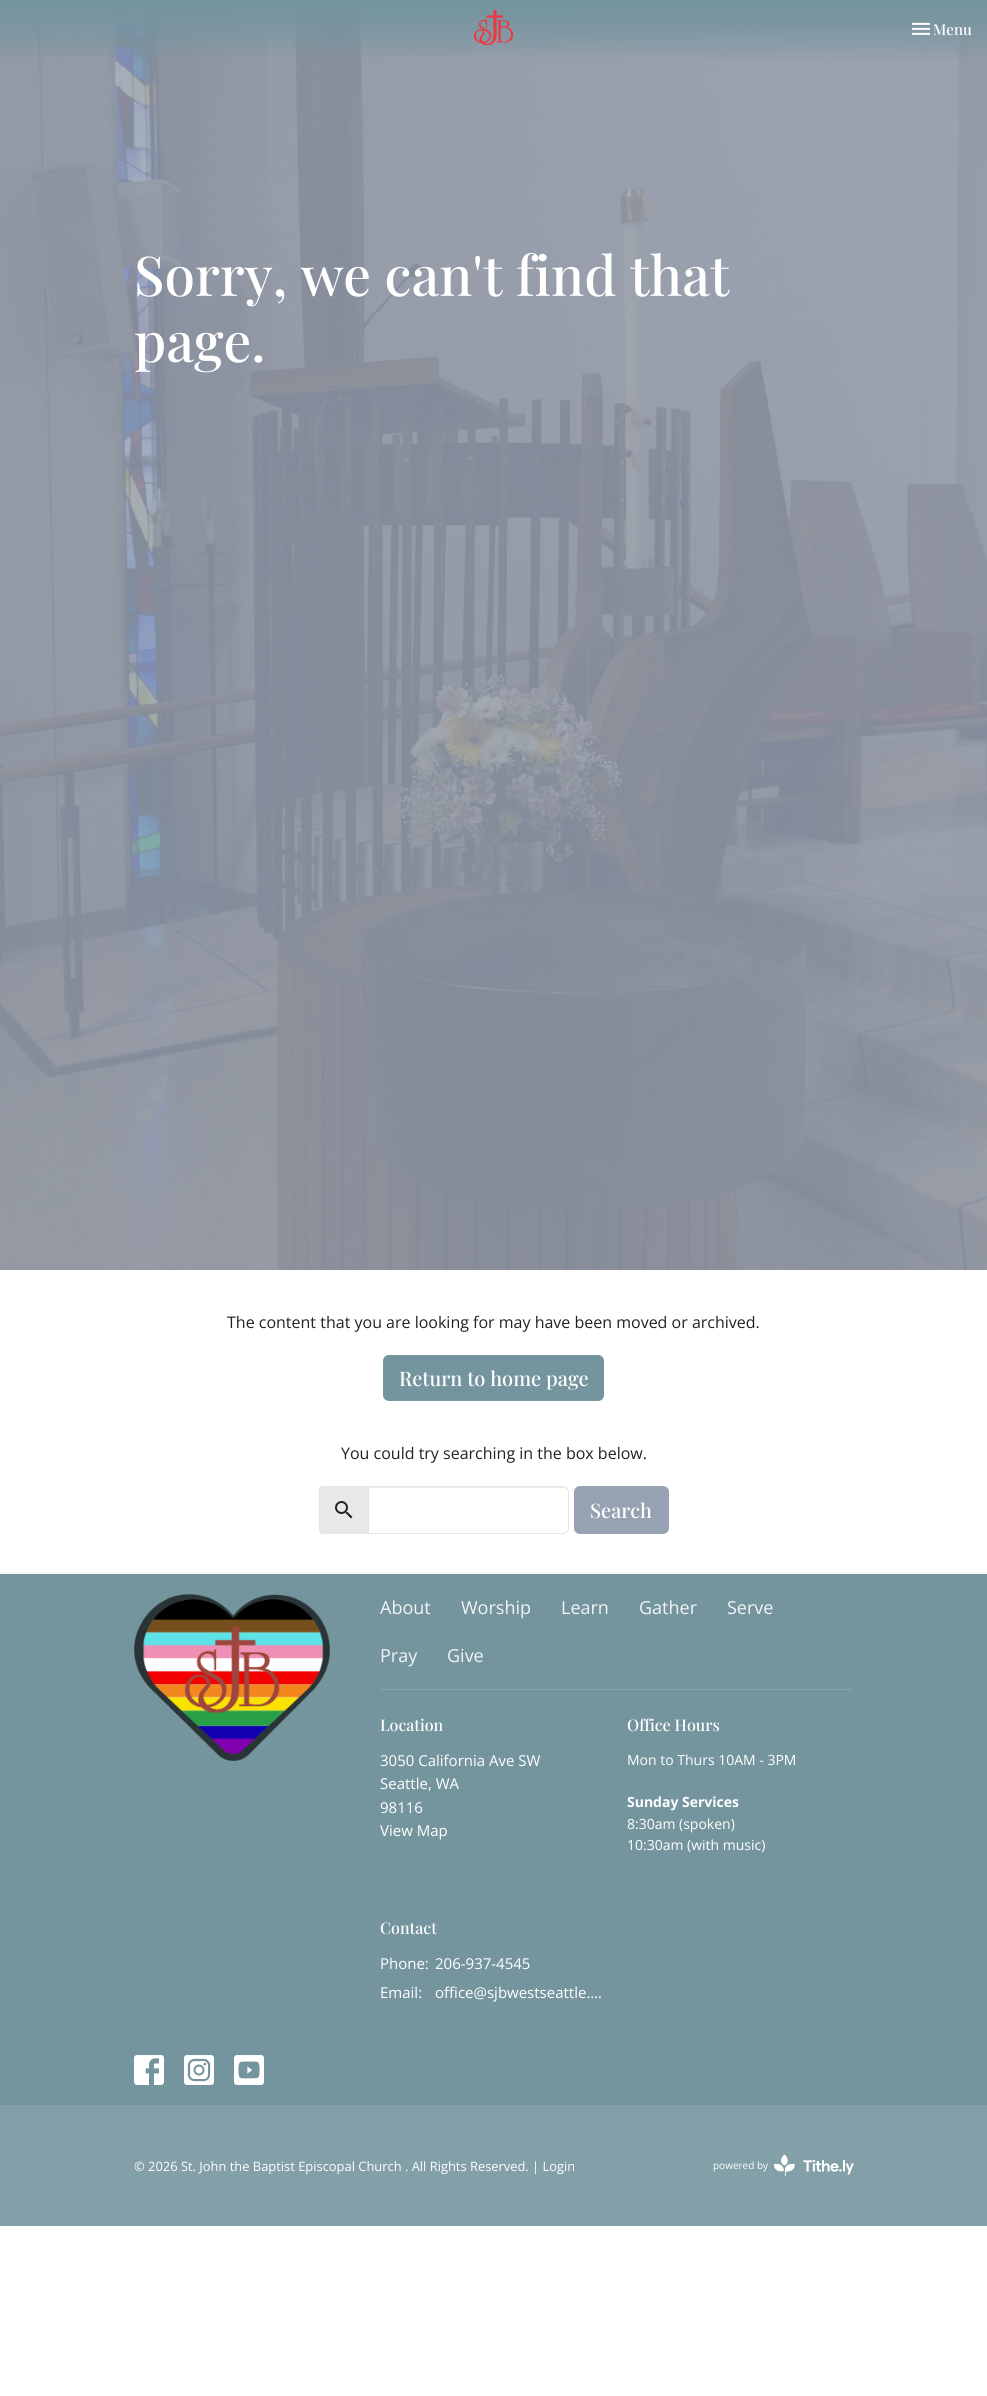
import math
import cairo


def round_path(ctx, x, y, w, h, r):
	ctx.new_sub_path()
	for i, (u, v) in enumerate([(x + w - r, y + h - r), (x + r, y + h - r), (x + r, y + r), (x + w - r, y + r)]):
		ctx.arc(u, v, r, i * math.pi / 2, (i + 1) * math.pi / 2)
	ctx.close_path()

def paste(ctx, path, x, y, w, h):
	ctx.save()
	ctx.set_source_surface(cairo.ImageSurface.create_from_png(path), x, y)
	ctx.rectangle(x, y, w, h)
	ctx.fill()
	ctx.restore()

def draw(ctx):
	ctx.set_source_rgb(1, 1, 1)
	ctx.paint()
	paste(ctx, 'media/3.png', 0, 0, 987, 1270)
	paste(ctx, 'media/1.png', 474, 10, 39, 35)
	paste(ctx, 'media/2.png', 912, 22, 18, 13)
	ctx.select_font_face('Playfair Display Medium')
	ctx.set_font_size(15)
	ctx.set_source_rgb(1, 1, 1)
	ctx.move_to(933, 35)
	ctx.show_text('Menu')
	ctx.set_font_size(55)
	ctx.move_to(134, 296)
	ctx.show_text('Sorry, we can\'t find that')
	ctx.move_to(134, 362)
	ctx.show_text('page.')
	ctx.select_font_face('Open Sans')
	ctx.set_font_size(16)
	ctx.set_source_rgb(0.133, 0.133, 0.133)
	ctx.move_to(227, 1328)
	ctx.show_text('The content that you are looking for may have been moved or archived.')
	ctx.set_source_rgb(0.459, 0.584, 0.62)
	round_path(ctx, 383, 1355, 221, 46, 6)
	ctx.fill()
	ctx.select_font_face('Playfair Display Medium')
	ctx.set_font_size(20)
	ctx.set_source_rgb(1, 1, 1)
	ctx.move_to(399, 1386)
	ctx.show_text('Return to home page')
	ctx.select_font_face('Open Sans')
	ctx.set_font_size(16)
	ctx.set_source_rgb(0.133, 0.133, 0.133)
	ctx.move_to(341, 1459)
	ctx.show_text('You could try searching in the box below.')
	ctx.set_source_rgb(0.91, 0.91, 0.91)
	ctx.new_path()
	ctx.move_to(323, 1486)
	ctx.line_to(368, 1486)
	ctx.line_to(368, 1534)
	ctx.line_to(323, 1534)
	ctx.curve_to(321, 1534, 319, 1532, 319, 1530)
	ctx.line_to(319, 1490)
	ctx.curve_to(319, 1488, 321, 1486, 323, 1486)
	ctx.close_path()
	ctx.fill()
	ctx.set_source_rgb(0.902, 0.902, 0.902)
	ctx.set_fill_rule(cairo.FILL_RULE_EVEN_ODD)
	ctx.new_path()
	ctx.move_to(323, 1486)
	ctx.line_to(368, 1486)
	ctx.line_to(368, 1534)
	ctx.line_to(323, 1534)
	ctx.curve_to(321, 1534, 319, 1532, 319, 1530)
	ctx.line_to(319, 1490)
	ctx.curve_to(319, 1488, 321, 1486, 323, 1486)
	ctx.close_path()
	ctx.move_to(323, 1487)
	ctx.line_to(368, 1487)
	ctx.line_to(368, 1533)
	ctx.line_to(323, 1533)
	ctx.curve_to(321, 1533, 320, 1532, 320, 1530)
	ctx.line_to(320, 1490)
	ctx.curve_to(320, 1488, 321, 1487, 323, 1487)
	ctx.close_path()
	ctx.fill()
	paste(ctx, 'media/4.png', 335, 1501, 18, 18)
	ctx.set_source_rgb(0.925, 0.925, 0.925)
	ctx.set_fill_rule(cairo.FILL_RULE_WINDING)
	ctx.new_path()
	ctx.move_to(369, 1488)
	ctx.line_to(563, 1488)
	ctx.curve_to(566, 1488, 568, 1490, 568, 1493)
	ctx.curve_to(568, 1490, 566, 1487, 563, 1487)
	ctx.line_to(369, 1487)
	ctx.close_path()
	ctx.fill()
	ctx.new_path()
	ctx.move_to(368.5, 1486.5)
	ctx.line_to(563, 1486.5)
	ctx.curve_to(566, 1486.5, 568.5, 1489, 568.5, 1492)
	ctx.line_to(568.5, 1528)
	ctx.curve_to(568.5, 1531, 566, 1533.5, 563, 1533.5)
	ctx.line_to(368.5, 1533.5)
	ctx.close_path()
	ctx.set_source_rgb(0.902, 0.902, 0.902)
	ctx.set_line_width(1)
	ctx.stroke()
	ctx.set_source_rgb(0.588, 0.635, 0.702)
	round_path(ctx, 574, 1486, 95, 48, 6)
	ctx.fill()
	ctx.select_font_face('Playfair Display Medium')
	ctx.set_font_size(20)
	ctx.set_source_rgb(1, 1, 1)
	ctx.move_to(590, 1518)
	ctx.show_text('Search')
	ctx.set_source_rgb(0.459, 0.584, 0.62)
	ctx.rectangle(0, 1574, 987, 531)
	ctx.fill()
	paste(ctx, 'media/5.png', 134, 1594, 196, 167)
	ctx.select_font_face('Open Sans')
	ctx.set_font_size(18)
	ctx.set_source_rgb(0.945, 0.957, 0.961)
	for x, y, s in [
		(380, 1614, 'About'),
		(461, 1614, 'Worship'),
		(561, 1614, 'Learn'),
		(639, 1614, 'Gather'),
		(727, 1614, 'Serve'),
		(380, 1662, 'Pray'),
		(447, 1662, 'Give'),
	]:
		ctx.move_to(x, y)
		ctx.show_text(s)
	ctx.set_source_rgb(0.529, 0.639, 0.671)
	ctx.rectangle(380, 1689, 473, 1)
	ctx.fill()
	ctx.select_font_face('Playfair Display Medium')
	ctx.set_font_size(16)
	ctx.set_source_rgb(1, 1, 1)
	ctx.move_to(380, 1731)
	ctx.show_text('Location')
	ctx.select_font_face('Open Sans')
	ctx.set_font_size(15)
	for x, y, s in [
		(380, 1766, '3050 California Ave SW'),
		(380, 1789, 'Seattle, WA'),
		(380, 1813, '98116'),
		(380, 1836, 'View Map'),
	]:
		ctx.move_to(x, y)
		ctx.show_text(s)
	ctx.select_font_face('Playfair Display Medium')
	ctx.set_font_size(16)
	ctx.move_to(627, 1731)
	ctx.show_text('Office Hours')
	ctx.select_font_face('Open Sans')
	ctx.set_font_size(14)
	ctx.move_to(627, 1765)
	ctx.show_text('Mon to Thurs 10AM - 3PM')
	ctx.select_font_face('Open Sans', cairo.FONT_SLANT_NORMAL, cairo.FONT_WEIGHT_BOLD)
	ctx.move_to(627, 1807)
	ctx.show_text('Sunday Services')
	ctx.select_font_face('Open Sans')
	ctx.move_to(627, 1829)
	ctx.show_text('8:30am (spoken)')
	ctx.move_to(627, 1850)
	ctx.show_text('10:30am (with music)')
	ctx.select_font_face('Playfair Display Medium')
	ctx.set_font_size(16)
	ctx.move_to(380, 1934)
	ctx.show_text('Contact')
	ctx.select_font_face('Open Sans')
	ctx.set_font_size(15)
	for x, y, s in [
		(380, 1969, 'Phone:'),
		(435, 1969, '206-937-4545'),
		(380, 1998, 'Email:'),
		(435, 1998, 'office@sjbwestseattle.…'),
	]:
		ctx.move_to(x, y)
		ctx.show_text(s)
	paste(ctx, 'media/6.png', 134, 2055, 30, 30)
	paste(ctx, 'media/7.png', 184, 2055, 30, 30)
	paste(ctx, 'media/8.png', 234, 2055, 30, 30)
	ctx.set_source_rgb(0.514, 0.627, 0.659)
	ctx.rectangle(0, 2105, 987, 121)
	ctx.fill()
	ctx.set_font_size(12.9)
	ctx.set_source_rgb(1, 1, 1)
	ctx.move_to(134, 2171)
	ctx.show_text('© 2026 St. John the Baptist Episcopal Church . All Rights Reserved. | Login')
	ctx.set_font_size(10)
	ctx.move_to(713, 2169)
	ctx.show_text('powered by')
	paste(ctx, 'media/9.png', 774, 2154, 80, 22)


surface = cairo.ImageSurface(cairo.FORMAT_RGB24, 987, 2396)
ctx = cairo.Context(surface)
options = cairo.FontOptions()
options.set_hint_metrics(cairo.HINT_METRICS_OFF)
options.set_hint_style(cairo.HINT_STYLE_NONE)
ctx.set_font_options(options)
ctx.set_miter_limit(4)
draw(ctx)
surface.write_to_png('image.png')
